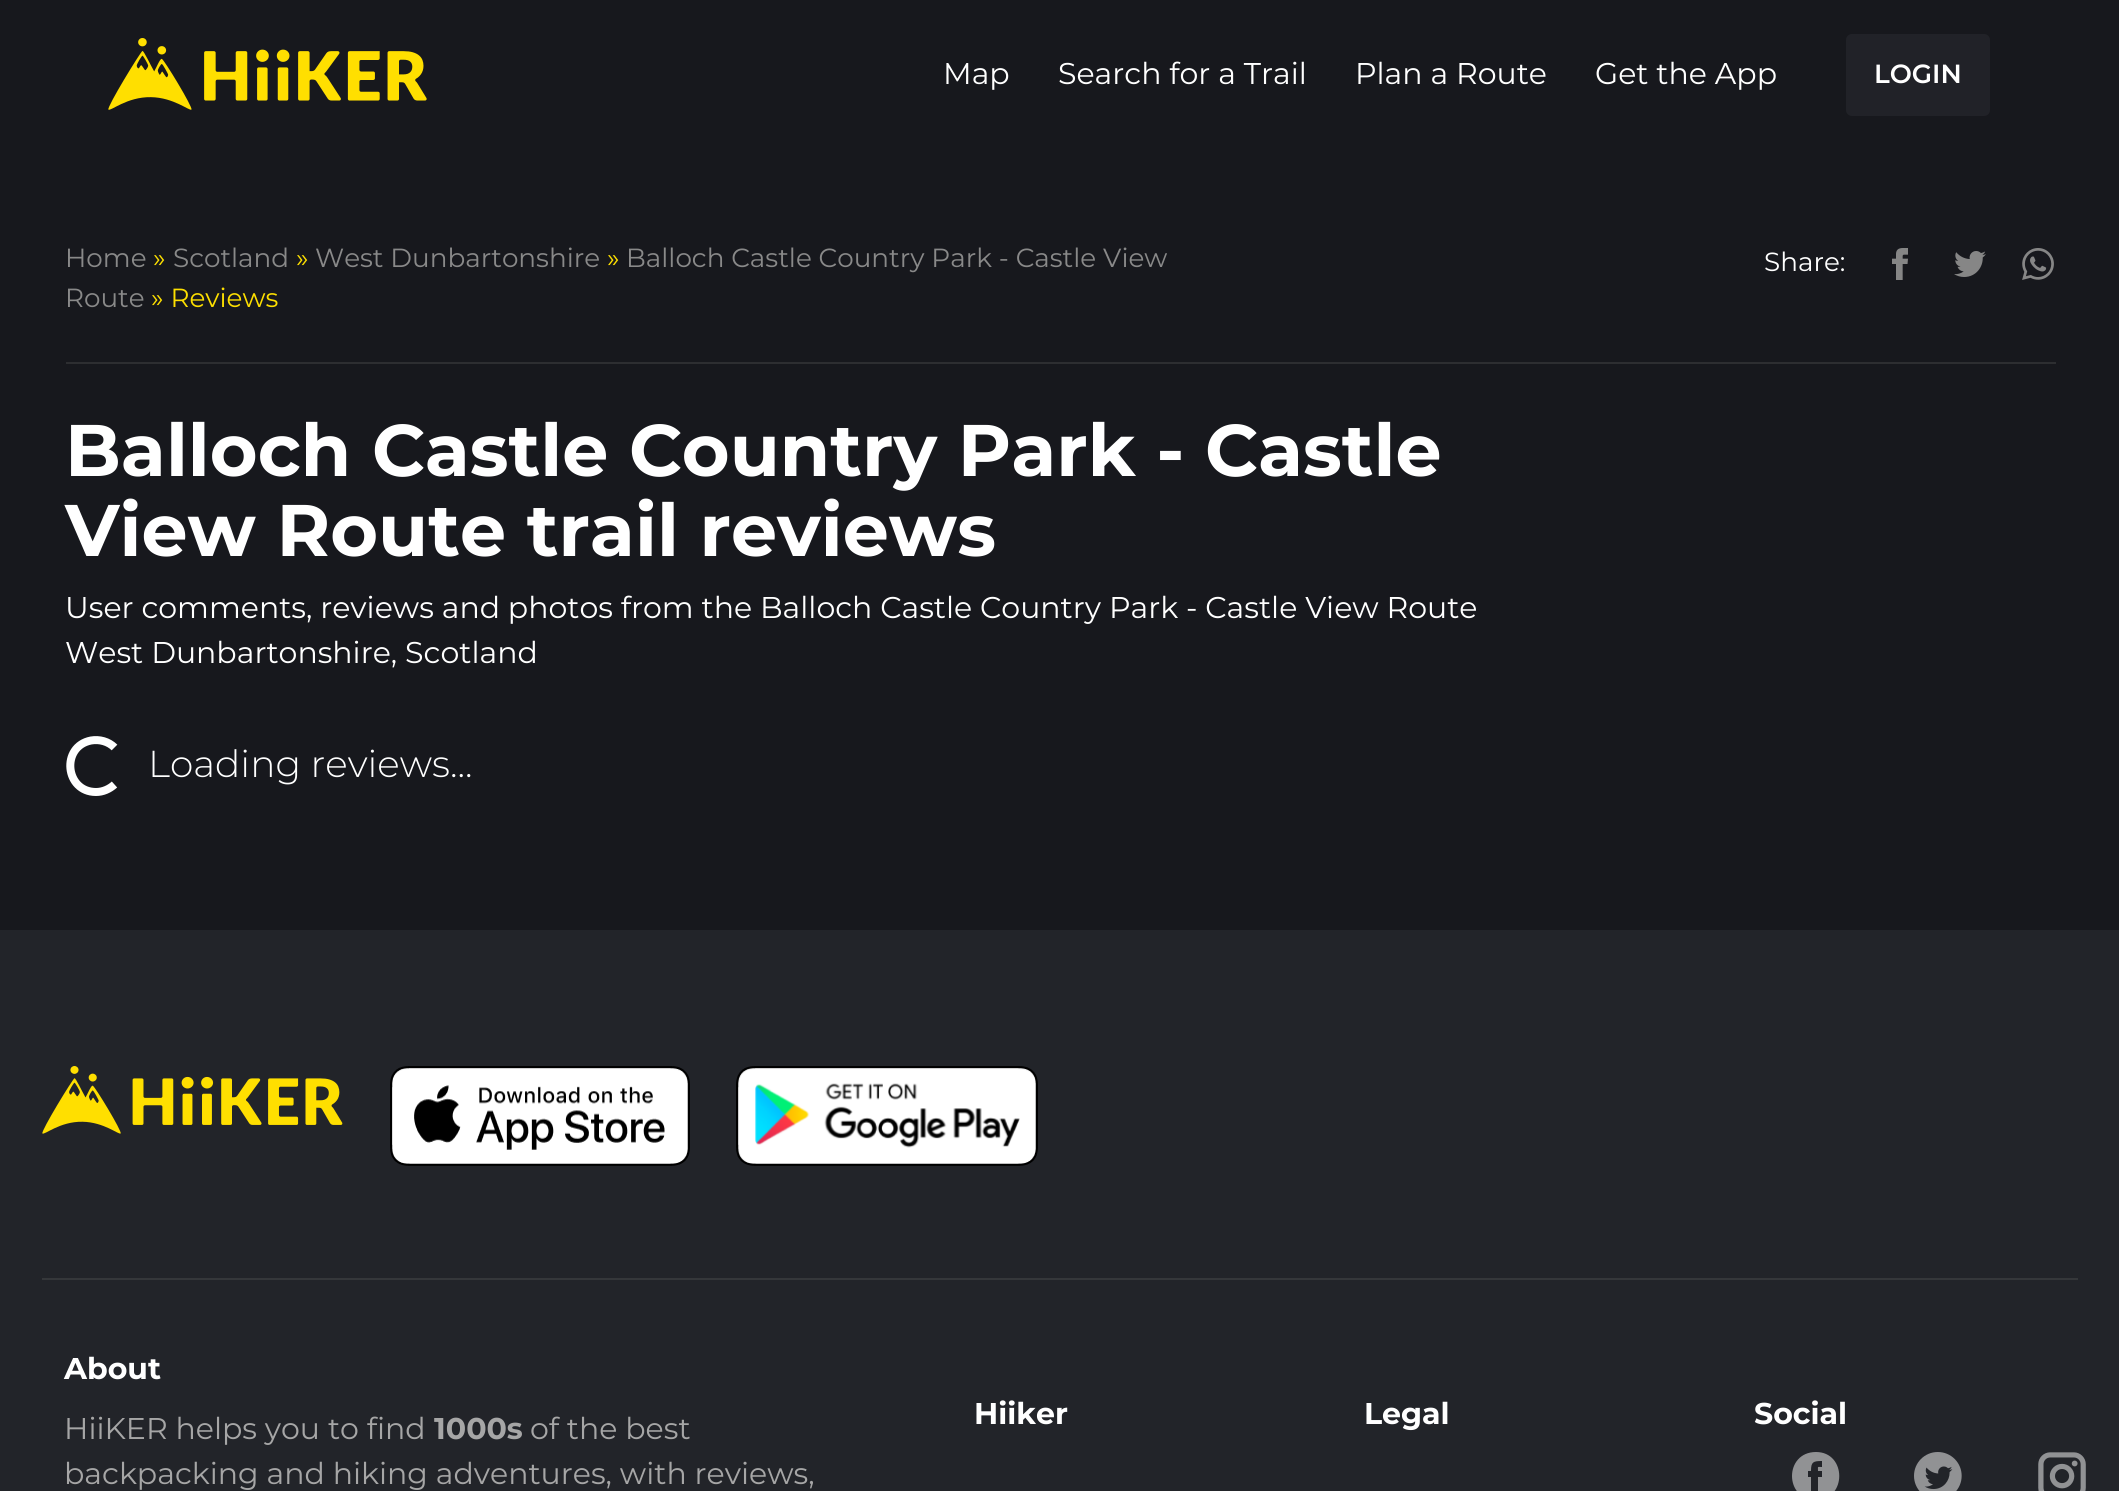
import math
import cairo


def round_path(ctx, x, y, w, h, r):
	ctx.new_sub_path()
	for i, (u, v) in enumerate([(x + w - r, y + h - r), (x + r, y + h - r), (x + r, y + r), (x + w - r, y + r)]):
		ctx.arc(u, v, r, i * math.pi / 2, (i + 1) * math.pi / 2)
	ctx.close_path()

def paste(ctx, path, x, y, w, h):
	ctx.save()
	ctx.set_source_surface(cairo.ImageSurface.create_from_png(path), x, y)
	ctx.rectangle(x, y, w, h)
	ctx.fill()
	ctx.restore()

def draw(ctx):
	ctx.set_source_rgb(0.09, 0.094, 0.114)
	ctx.paint()
	paste(ctx, 'media/1.png', 108, 38, 319, 72)
	ctx.select_font_face('Montserrat')
	ctx.set_font_size(30)
	ctx.set_source_rgb(1, 1, 1)
	for x, y, s in [
		(943, 84, 'Map'),
		(1058, 84, 'Search for a Trail'),
		(1355, 84, 'Plan a Route'),
		(1595, 84, 'Get the App'),
	]:
		ctx.move_to(x, y)
		ctx.show_text(s)
	ctx.set_source_rgb(0.129, 0.133, 0.157)
	round_path(ctx, 1847, 35, 142, 80, 5)
	ctx.fill_preserve()
	ctx.stroke()
	ctx.select_font_face('Montserrat SemiBold')
	ctx.set_font_size(26.25)
	ctx.set_source_rgb(1, 1, 1)
	ctx.move_to(1874, 83)
	ctx.show_text('LOGIN')
	ctx.select_font_face('Montserrat')
	ctx.set_source_rgb(0.537, 0.537, 0.537)
	ctx.move_to(65, 267)
	ctx.show_text('Home')
	ctx.set_source_rgb(0.992, 0.875, 0)
	ctx.move_to(153, 267)
	ctx.show_text('»')
	ctx.set_source_rgb(0.537, 0.537, 0.537)
	ctx.move_to(173, 267)
	ctx.show_text('Scotland')
	ctx.set_source_rgb(0.992, 0.875, 0)
	ctx.move_to(296, 267)
	ctx.show_text('»')
	ctx.set_source_rgb(0.537, 0.537, 0.537)
	ctx.move_to(315, 267)
	ctx.show_text('West Dunbartonshire')
	ctx.set_source_rgb(0.992, 0.875, 0)
	ctx.move_to(607, 267)
	ctx.show_text('»')
	ctx.set_source_rgb(0.537, 0.537, 0.537)
	ctx.move_to(626, 267)
	ctx.show_text('Balloch Castle Country Park - Castle View')
	ctx.move_to(65, 307)
	ctx.show_text('Route')
	ctx.set_source_rgb(0.992, 0.875, 0)
	ctx.move_to(151, 307)
	ctx.show_text('» Reviews')
	ctx.set_source_rgb(1, 1, 1)
	ctx.move_to(1764, 271)
	ctx.show_text('Share:')
	paste(ctx, 'media/2.png', 1892, 248, 16, 32)
	paste(ctx, 'media/3.png', 1954, 251, 32, 26)
	paste(ctx, 'media/4.png', 2022, 248, 32, 32)
	ctx.set_source_rgb(0.176, 0.18, 0.192)
	ctx.rectangle(66, 362, 1990, 2)
	ctx.fill()
	ctx.select_font_face('Montserrat', cairo.FONT_SLANT_NORMAL, cairo.FONT_WEIGHT_BOLD)
	ctx.set_font_size(73)
	ctx.set_source_rgb(1, 1, 1)
	ctx.move_to(65, 476)
	ctx.show_text('Balloch Castle Country Park - Castle')
	ctx.move_to(65, 556)
	ctx.show_text('View Route trail reviews')
	ctx.select_font_face('Montserrat')
	ctx.set_font_size(30)
	ctx.move_to(65, 618)
	ctx.show_text('User comments, reviews and photos from the Balloch Castle Country Park - Castle View Route')
	ctx.move_to(65, 663)
	ctx.show_text('West Dunbartonshire, Scotland')
	ctx.new_path()
	ctx.move_to(114.5, 784.5)
	ctx.curve_to(109.5, 789, 103, 792, 96, 792)
	ctx.curve_to(65, 792, 60.5, 746.5, 91, 740.5)
	ctx.curve_to(99.5, 739, 108.5, 741.5, 114.5, 747.5)
	ctx.set_line_width(8)
	ctx.stroke()
	ctx.select_font_face('Montserrat Light')
	ctx.set_font_size(37.5)
	ctx.move_to(148, 777)
	ctx.show_text('Loading reviews...')
	ctx.set_source_rgb(0.133, 0.141, 0.161)
	ctx.rectangle(0, 930, 2119, 561)
	ctx.fill()
	paste(ctx, 'media/5.png', 42, 1066, 301, 68)
	paste(ctx, 'media/6.png', 390, 1066, 300, 100)
	paste(ctx, 'media/7.png', 736, 1066, 302, 100)
	ctx.set_source_rgb(0.208, 0.216, 0.227)
	ctx.rectangle(42, 1278, 2036, 2)
	ctx.fill()
	ctx.select_font_face('Montserrat', cairo.FONT_SLANT_NORMAL, cairo.FONT_WEIGHT_BOLD)
	ctx.set_font_size(30)
	ctx.set_source_rgb(1, 1, 1)
	ctx.move_to(64, 1379)
	ctx.show_text('About')
	ctx.select_font_face('Montserrat')
	ctx.set_source_rgb(0.651, 0.651, 0.651)
	ctx.move_to(64, 1439)
	ctx.show_text('HiiKER helps you to find')
	ctx.select_font_face('Montserrat', cairo.FONT_SLANT_NORMAL, cairo.FONT_WEIGHT_BOLD)
	ctx.move_to(434, 1439)
	ctx.show_text('1000s')
	ctx.select_font_face('Montserrat')
	ctx.move_to(530, 1439)
	ctx.show_text('of the best')
	ctx.move_to(64, 1484)
	ctx.show_text('backpacking and hiking adventures, with reviews,')
	ctx.select_font_face('Montserrat', cairo.FONT_SLANT_NORMAL, cairo.FONT_WEIGHT_BOLD)
	ctx.set_source_rgb(1, 1, 1)
	for x, y, s in [
		(974, 1424, 'Hiiker'),
		(1364, 1424, 'Legal'),
		(1754, 1424, 'Social'),
	]:
		ctx.move_to(x, y)
		ctx.show_text(s)
	ctx.set_source_rgb(0.569, 0.573, 0.58)
	ctx.new_path()
	ctx.move_to(1816, 1452)
	ctx.curve_to(1784, 1452, 1784, 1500, 1816, 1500)
	ctx.curve_to(1847, 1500, 1847, 1452, 1816, 1452)
	ctx.close_path()
	ctx.move_to(1822, 1467)
	ctx.curve_to(1817, 1467, 1818, 1466, 1818, 1471)
	ctx.line_to(1822, 1471)
	ctx.line_to(1822, 1477)
	ctx.line_to(1818, 1477)
	ctx.line_to(1818, 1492)
	ctx.line_to(1811, 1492)
	ctx.line_to(1811, 1477)
	ctx.line_to(1808, 1477)
	ctx.line_to(1808, 1471)
	ctx.line_to(1811, 1471)
	ctx.curve_to(1811, 1462, 1813, 1461, 1822, 1461)
	ctx.close_path()
	ctx.fill()
	paste(ctx, 'media/8.png', 1914, 1452, 48, 39)
	paste(ctx, 'media/9.png', 2038, 1452, 48, 39)


surface = cairo.ImageSurface(cairo.FORMAT_RGB24, 2119, 1491)
ctx = cairo.Context(surface)
options = cairo.FontOptions()
options.set_hint_metrics(cairo.HINT_METRICS_OFF)
options.set_hint_style(cairo.HINT_STYLE_NONE)
ctx.set_font_options(options)
ctx.set_miter_limit(4)
draw(ctx)
surface.write_to_png('image.png')
